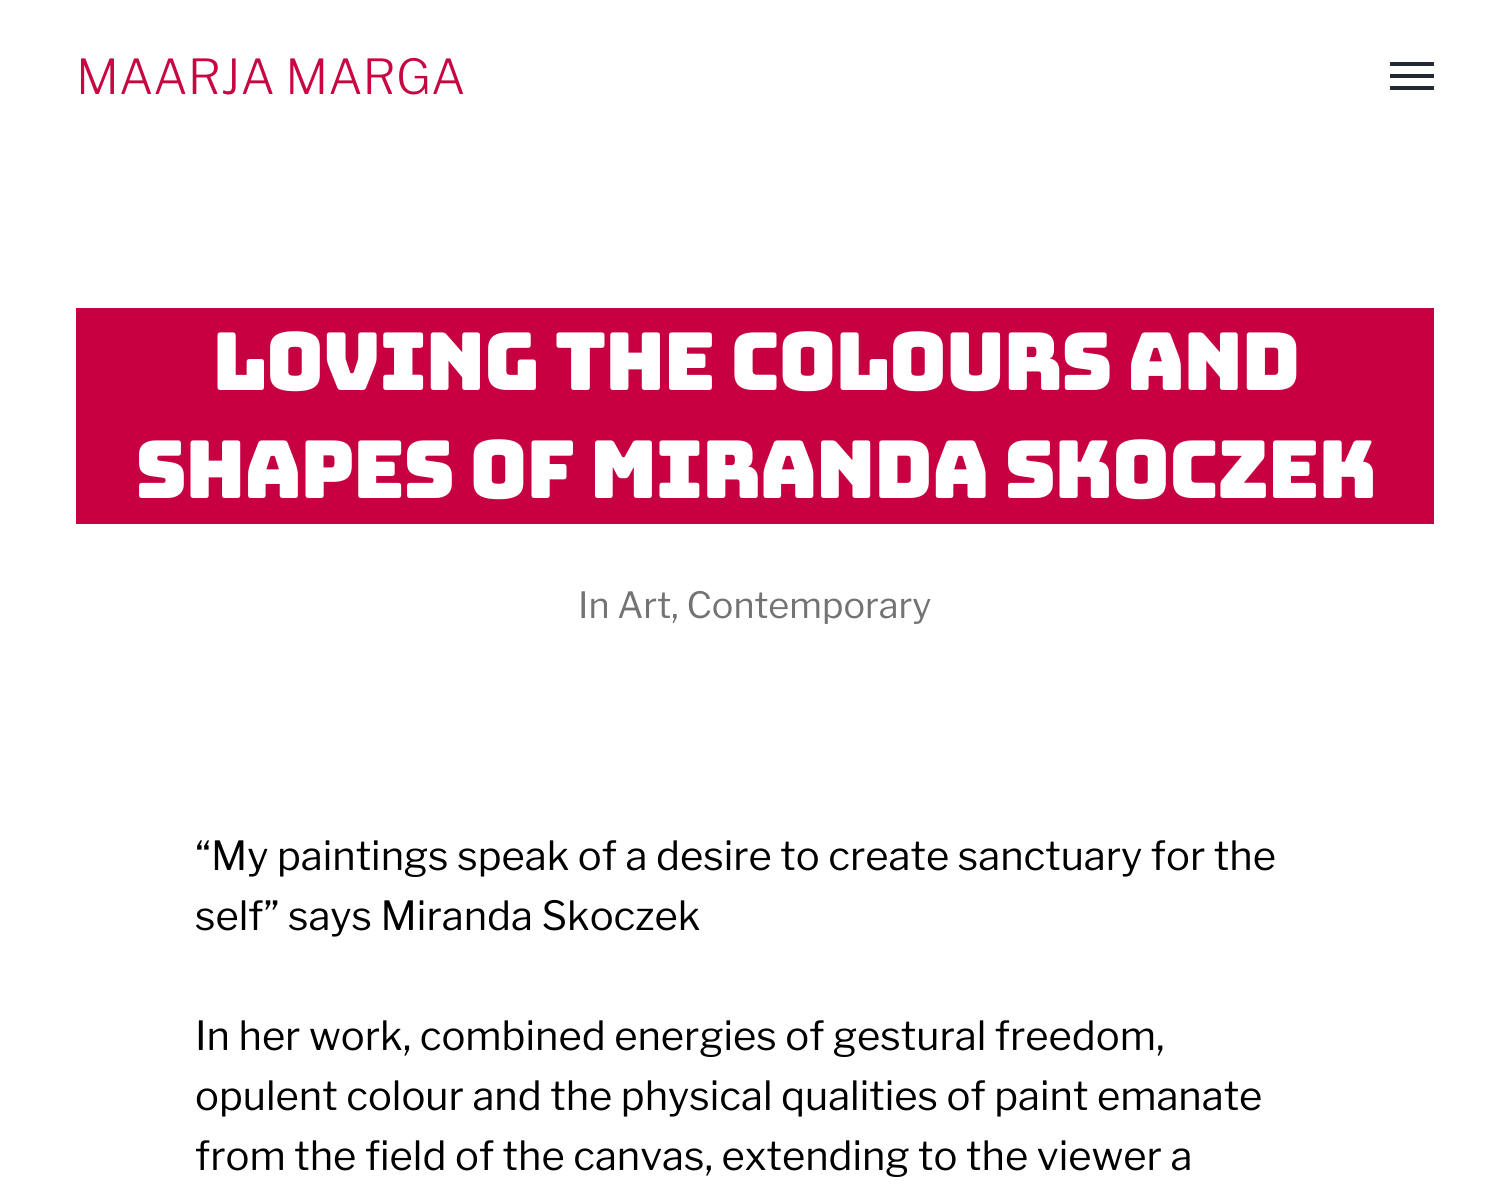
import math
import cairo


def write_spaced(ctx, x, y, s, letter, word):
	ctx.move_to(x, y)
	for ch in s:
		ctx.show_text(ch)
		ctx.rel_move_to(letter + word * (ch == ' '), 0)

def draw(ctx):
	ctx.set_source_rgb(1, 1, 1)
	ctx.paint()
	ctx.select_font_face('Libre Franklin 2 Thin')
	ctx.set_font_size(48)
	ctx.set_source_rgb(0.78, 0.031, 0.255)
	ctx.move_to(76, 94)
	ctx.show_text('MAARJA MARGA')
	ctx.set_source_rgb(0.129, 0.165, 0.204)
	ctx.rectangle(1390, 62, 44, 4)
	ctx.rectangle(1390, 74, 44, 4)
	ctx.rectangle(1390, 86, 44, 4)
	ctx.fill()
	ctx.set_source_rgb(0.78, 0, 0.255)
	ctx.rectangle(76, 308, 1358, 216)
	ctx.fill()
	ctx.select_font_face('Bungee')
	ctx.set_font_size(80)
	ctx.set_source_rgb(1, 1, 1)
	write_spaced(ctx, 212, 390, 'Loving the colours and', -2, 0)
	write_spaced(ctx, 135, 498, 'shapes of Miranda Skoczek', -2, 0)
	ctx.select_font_face('Libre Franklin Thin')
	ctx.set_font_size(36)
	ctx.set_source_rgb(0.451, 0.451, 0.451)
	ctx.move_to(578, 618)
	ctx.show_text('In Art, Contemporary')
	ctx.set_font_size(40)
	ctx.set_source_rgb(0, 0, 0)
	for x, y, s in [
		(195, 870, '“My paintings speak of a desire to create sanctuary for the'),
		(195, 930, 'self” says Miranda Skoczek'),
		(195, 1050, 'In her work, combined energies of gestural freedom,'),
		(195, 1110, 'opulent colour and the physical qualities of paint emanate'),
		(195, 1170, 'from the field of the canvas, extending to the viewer a'),
	]:
		ctx.move_to(x, y)
		ctx.show_text(s)


surface = cairo.ImageSurface(cairo.FORMAT_RGB24, 1510, 1194)
ctx = cairo.Context(surface)
options = cairo.FontOptions()
options.set_hint_metrics(cairo.HINT_METRICS_OFF)
options.set_hint_style(cairo.HINT_STYLE_NONE)
ctx.set_font_options(options)
ctx.set_miter_limit(4)
draw(ctx)
surface.write_to_png('image.png')
